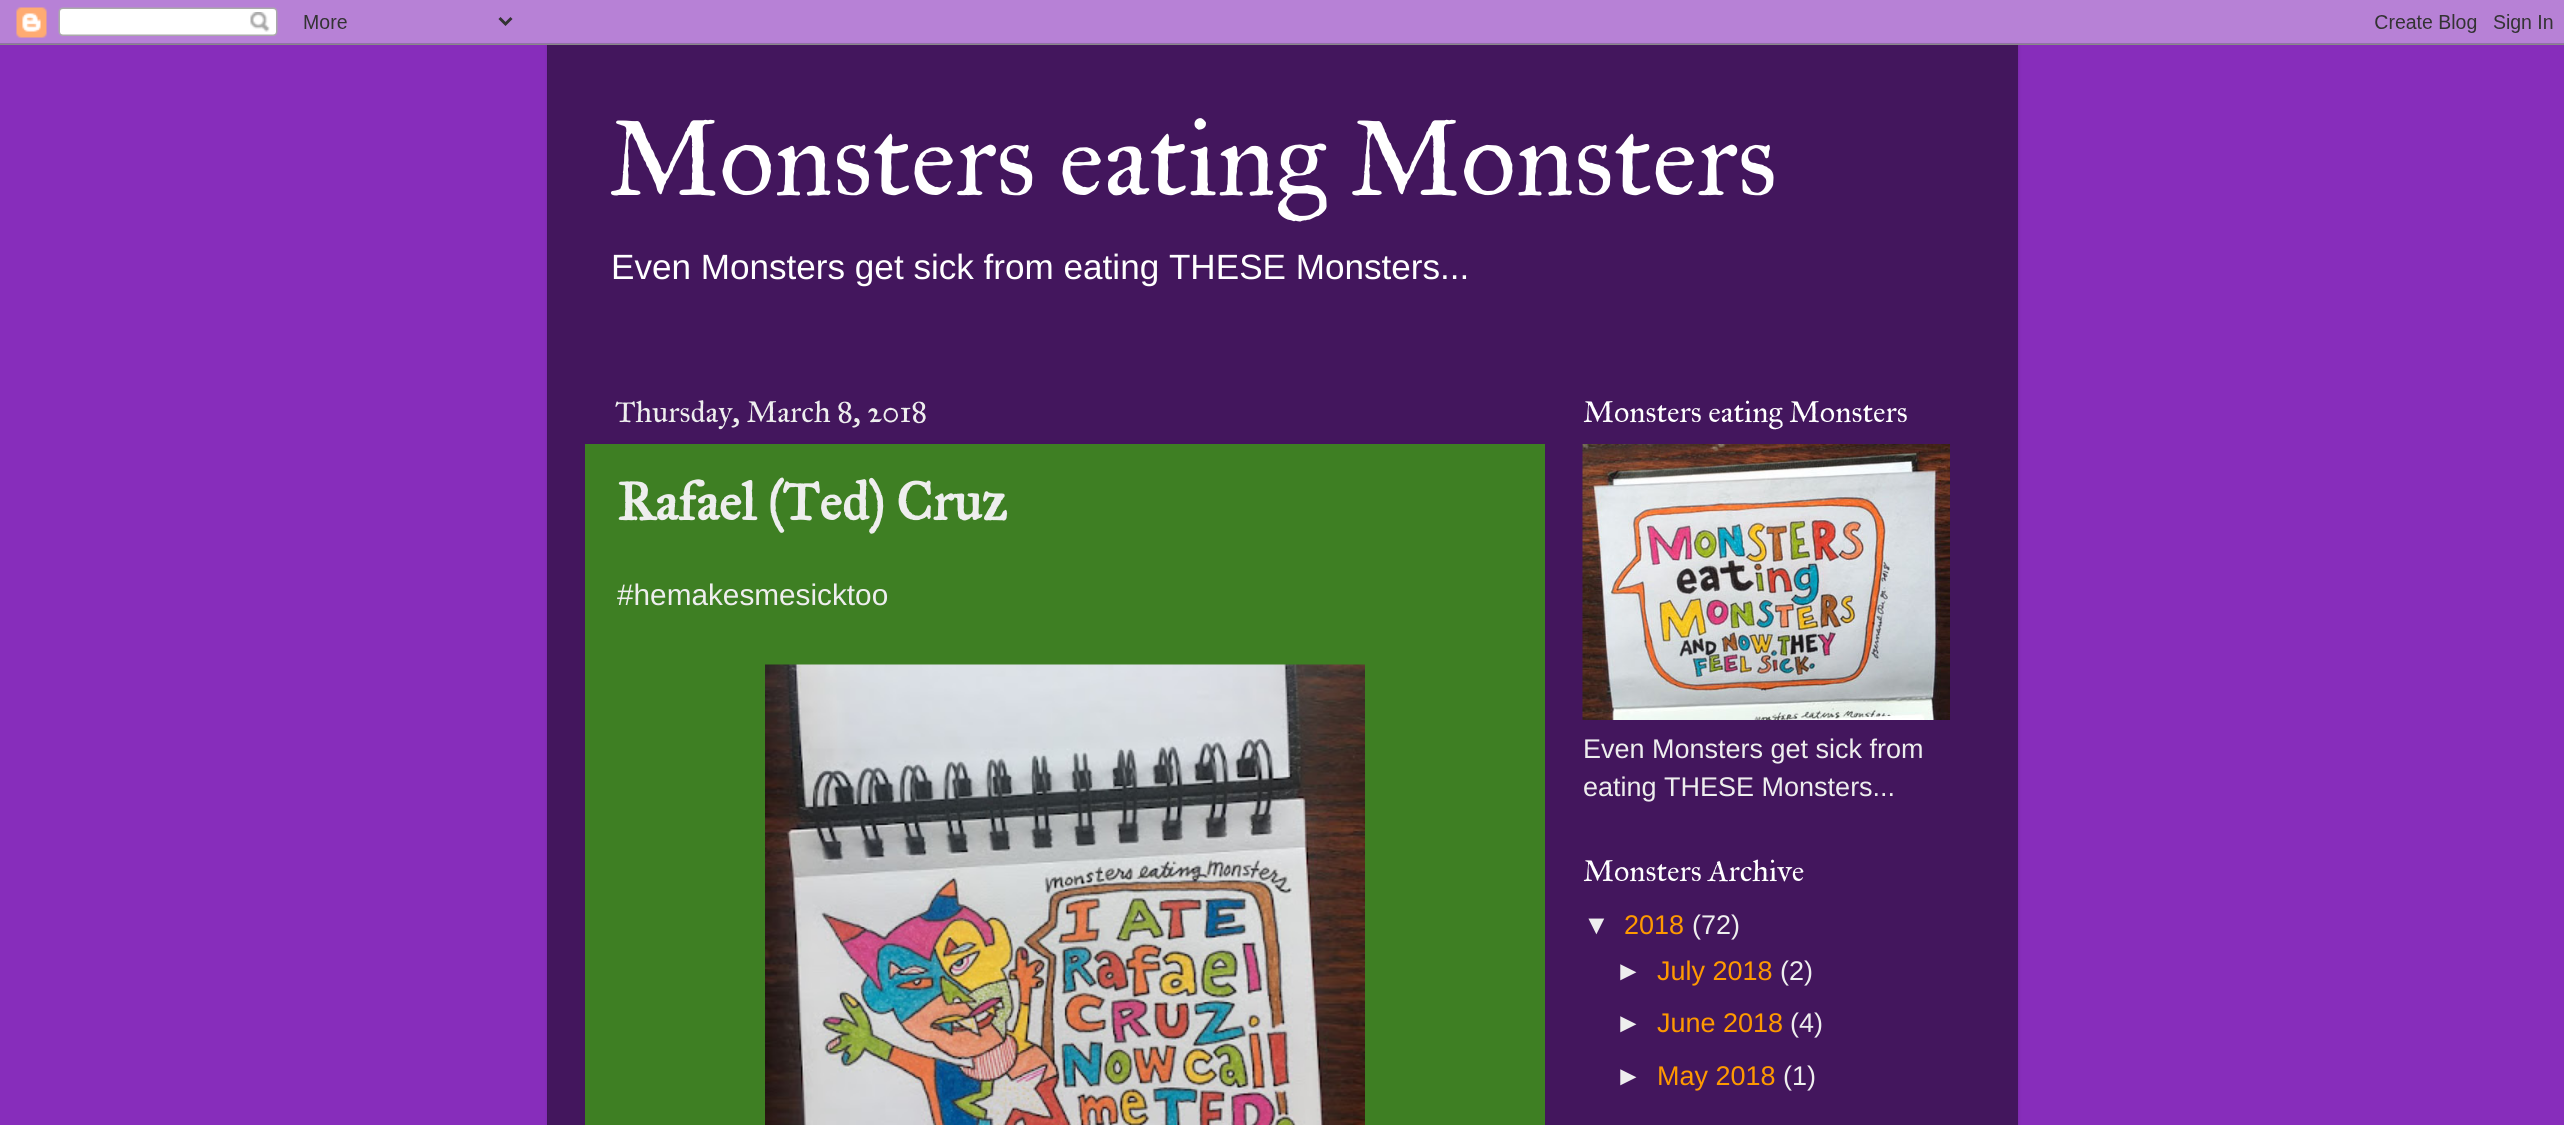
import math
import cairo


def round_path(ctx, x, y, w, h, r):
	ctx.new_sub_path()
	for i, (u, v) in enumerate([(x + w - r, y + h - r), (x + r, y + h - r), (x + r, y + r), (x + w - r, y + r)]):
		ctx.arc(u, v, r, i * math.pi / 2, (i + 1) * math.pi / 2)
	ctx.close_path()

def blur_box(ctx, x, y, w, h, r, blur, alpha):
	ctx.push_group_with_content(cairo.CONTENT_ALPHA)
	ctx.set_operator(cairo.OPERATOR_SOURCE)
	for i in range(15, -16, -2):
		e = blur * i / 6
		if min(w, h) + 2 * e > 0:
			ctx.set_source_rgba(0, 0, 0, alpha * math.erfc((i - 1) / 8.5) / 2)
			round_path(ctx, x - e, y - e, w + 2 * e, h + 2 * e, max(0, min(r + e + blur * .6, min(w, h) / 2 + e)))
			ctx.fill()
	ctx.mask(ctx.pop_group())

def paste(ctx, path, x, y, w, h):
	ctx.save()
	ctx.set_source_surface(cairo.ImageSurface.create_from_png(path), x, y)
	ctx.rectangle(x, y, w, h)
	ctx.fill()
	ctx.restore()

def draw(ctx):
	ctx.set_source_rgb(0.529, 0.176, 0.733)
	ctx.paint()
	ctx.save()
	ctx.set_fill_rule(cairo.FILL_RULE_EVEN_ODD)
	ctx.new_path()
	ctx.move_to(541, 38)
	ctx.line_to(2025, 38)
	ctx.line_to(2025, 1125)
	ctx.line_to(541, 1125)
	ctx.close_path()
	ctx.move_to(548, 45)
	ctx.line_to(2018, 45)
	ctx.line_to(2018, 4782)
	ctx.line_to(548, 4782)
	ctx.close_path()
	ctx.clip()
	ctx.set_source_rgb(0, 0, 0)
	blur_box(ctx, 548, 45, 1470, 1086, 0, 2, 0.15)
	ctx.restore()
	paste(ctx, 'media/1.png', 0, 0, 2564, 45)
	ctx.set_source_rgba(0, 0, 0, 0.5)
	ctx.rectangle(547, 45, 1471, 1080)
	ctx.fill()
	ctx.select_font_face('IM FELL Great Primer')
	ctx.set_font_size(108)
	ctx.set_source_rgb(1, 1, 1)
	ctx.move_to(608, 195)
	ctx.show_text('Monsters eating Monsters')
	ctx.select_font_face('Liberation Sans')
	ctx.set_font_size(35.1)
	ctx.move_to(611, 279)
	ctx.show_text('Even Monsters get sick from eating THESE Monsters...')
	ctx.select_font_face('IM FELL Great Primer')
	ctx.set_font_size(30)
	ctx.set_source_rgb(0.933, 0.933, 0.933)
	ctx.move_to(615, 422)
	ctx.show_text('Thursday, March 8, 2018')
	ctx.set_source_rgb(0.243, 0.498, 0.137)
	ctx.rectangle(585, 444, 960, 681)
	ctx.fill()
	ctx.select_font_face('IM FELL Great Primer', cairo.FONT_SLANT_NORMAL, cairo.FONT_WEIGHT_BOLD)
	ctx.set_font_size(54)
	ctx.set_source_rgb(0.933, 0.933, 0.933)
	ctx.move_to(617, 520)
	ctx.show_text('Rafael (Ted) Cruz')
	ctx.select_font_face('Liberation Sans')
	ctx.set_font_size(29.75)
	ctx.move_to(617, 605)
	ctx.show_text('#hemakesmesicktoo')
	paste(ctx, 'media/2.png', 765, 664, 600, 461)
	ctx.select_font_face('IM FELL Great Primer')
	ctx.set_font_size(30)
	ctx.set_source_rgb(1, 1, 1)
	ctx.move_to(1583, 422)
	ctx.show_text('Monsters eating Monsters')
	paste(ctx, 'media/3.png', 1582, 444, 368, 276)
	ctx.select_font_face('Liberation Sans')
	ctx.set_font_size(27)
	ctx.set_source_rgb(0.933, 0.933, 0.933)
	ctx.move_to(1583, 758)
	ctx.show_text('Even Monsters get sick from')
	ctx.move_to(1583, 796)
	ctx.show_text('eating THESE Monsters...')
	ctx.select_font_face('IM FELL Great Primer')
	ctx.set_font_size(30)
	ctx.set_source_rgb(1, 1, 1)
	ctx.move_to(1583, 881)
	ctx.show_text('Monsters Archive')
	ctx.select_font_face('Liberation Sans')
	ctx.set_font_size(27)
	ctx.set_source_rgb(0.933, 0.933, 0.933)
	ctx.move_to(1583, 934)
	ctx.show_text('▼')
	ctx.set_source_rgb(1, 0.6, 0)
	ctx.move_to(1624, 934)
	ctx.show_text('2018')
	ctx.set_source_rgb(0.933, 0.933, 0.933)
	ctx.move_to(1692, 934)
	ctx.show_text('(72)')
	ctx.move_to(1615, 980)
	ctx.show_text('►')
	ctx.set_source_rgb(1, 0.6, 0)
	ctx.move_to(1657, 980)
	ctx.show_text('July 2018')
	ctx.set_source_rgb(0.933, 0.933, 0.933)
	ctx.move_to(1780, 980)
	ctx.show_text('(2)')
	ctx.move_to(1615, 1032)
	ctx.show_text('►')
	ctx.set_source_rgb(1, 0.6, 0)
	ctx.move_to(1657, 1032)
	ctx.show_text('June 2018')
	ctx.set_source_rgb(0.933, 0.933, 0.933)
	ctx.move_to(1790, 1032)
	ctx.show_text('(4)')
	ctx.move_to(1615, 1085)
	ctx.show_text('►')
	ctx.set_source_rgb(1, 0.6, 0)
	ctx.move_to(1657, 1085)
	ctx.show_text('May 2018')
	ctx.set_source_rgb(0.933, 0.933, 0.933)
	ctx.move_to(1783, 1085)
	ctx.show_text('(1)')


surface = cairo.ImageSurface(cairo.FORMAT_RGB24, 2564, 1125)
ctx = cairo.Context(surface)
options = cairo.FontOptions()
options.set_hint_metrics(cairo.HINT_METRICS_OFF)
options.set_hint_style(cairo.HINT_STYLE_NONE)
ctx.set_font_options(options)
ctx.set_miter_limit(4)
draw(ctx)
surface.write_to_png('image.png')
